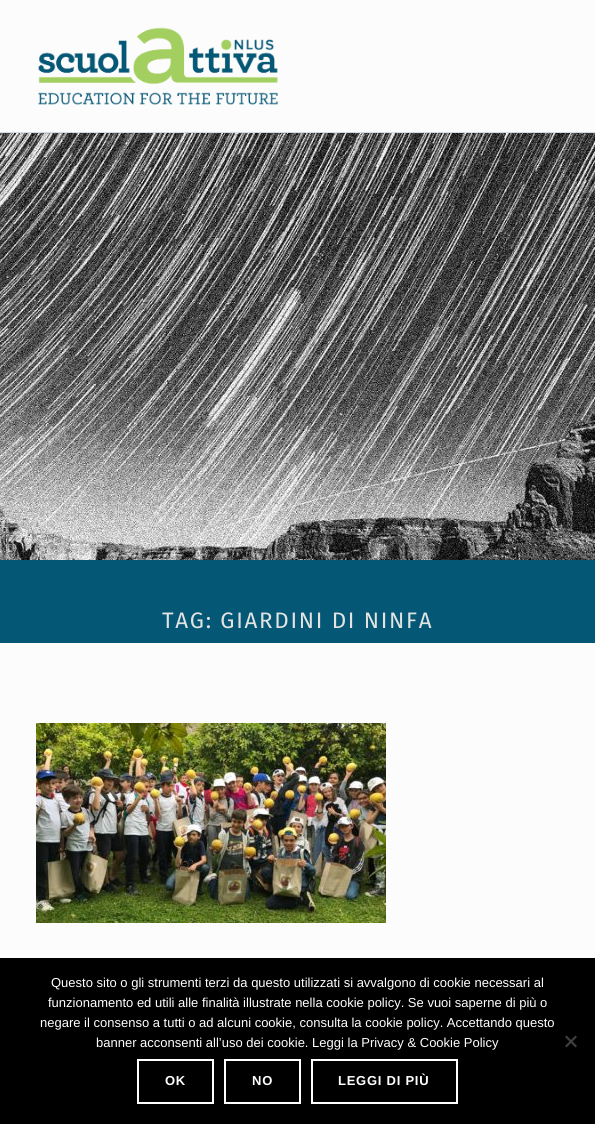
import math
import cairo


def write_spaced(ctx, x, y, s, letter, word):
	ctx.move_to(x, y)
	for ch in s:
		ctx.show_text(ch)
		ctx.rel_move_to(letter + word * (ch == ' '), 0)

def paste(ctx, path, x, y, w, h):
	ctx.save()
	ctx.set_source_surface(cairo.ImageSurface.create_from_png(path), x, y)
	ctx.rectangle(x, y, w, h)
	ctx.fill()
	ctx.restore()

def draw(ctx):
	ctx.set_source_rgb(0.992, 0.988, 0.988)
	ctx.paint()
	ctx.set_source_rgb(0.804, 0.867, 0.89)
	ctx.rectangle(0, 132, 595, 1)
	ctx.fill()
	paste(ctx, 'media/1.png', 38, 27, 240, 78)
	paste(ctx, 'media/2.png', 0, 133, 595, 427)
	ctx.set_source_rgb(0.02, 0.341, 0.463)
	ctx.rectangle(0, 560, 595, 83)
	ctx.fill()
	ctx.select_font_face('Fira Sans')
	ctx.set_font_size(22.4)
	ctx.set_source_rgb(0.894, 0.89, 0.89)
	write_spaced(ctx, 162, 628, 'TAG: GIARDINI DI NINFA', 1.7, 0)
	paste(ctx, 'media/3.png', 36, 723, 350, 200)
	ctx.set_source_rgb(0, 0, 0)
	ctx.rectangle(0, 958, 595, 166)
	ctx.fill()
	ctx.select_font_face('Liberation Sans')
	ctx.set_font_size(13)
	ctx.set_source_rgb(1, 1, 1)
	for x, y, s in [
		(51, 987, 'Questo sito o gli strumenti terzi da questo utilizzati si avvalgono di cookie necessari al'),
		(48, 1007, 'funzionamento ed utili alle finalità illustrate nella cookie policy. Se vuoi saperne di più o'),
		(40, 1027, 'negare il consenso a tutti o ad alcuni cookie, consulta la cookie policy. Accettando questo'),
		(96, 1047, 'banner acconsenti all’uso dei cookie. Leggi la Privacy & Cookie Policy'),
	]:
		ctx.move_to(x, y)
		ctx.show_text(s)
	ctx.set_source_rgb(0.251, 0.251, 0.251)
	ctx.new_path()
	ctx.move_to(575.5, 1035.5)
	ctx.line_to(577, 1037)
	ctx.line_to(566.5, 1047.5)
	ctx.line_to(565, 1046)
	ctx.close_path()
	ctx.fill()
	ctx.new_path()
	ctx.move_to(565, 1037)
	ctx.line_to(566.5, 1035.5)
	ctx.line_to(577, 1046)
	ctx.line_to(575.5, 1047.5)
	ctx.close_path()
	ctx.fill()
	ctx.rectangle(138, 1060, 75, 43)
	ctx.set_source_rgb(1, 1, 1)
	ctx.stroke()
	ctx.select_font_face('Liberation Sans', cairo.FONT_SLANT_NORMAL, cairo.FONT_WEIGHT_BOLD)
	write_spaced(ctx, 165, 1085, 'OK', 0.75, 0)
	ctx.rectangle(225, 1060, 75, 43)
	ctx.stroke()
	write_spaced(ctx, 252, 1085, 'NO', 0.75, 0)
	ctx.rectangle(312, 1060, 145, 43)
	ctx.stroke()
	write_spaced(ctx, 338, 1085, 'LEGGI DI PIÙ', 0.75, 0)


surface = cairo.ImageSurface(cairo.FORMAT_RGB24, 595, 1124)
ctx = cairo.Context(surface)
options = cairo.FontOptions()
options.set_hint_metrics(cairo.HINT_METRICS_OFF)
options.set_hint_style(cairo.HINT_STYLE_NONE)
ctx.set_font_options(options)
ctx.set_miter_limit(4)
draw(ctx)
surface.write_to_png('image.png')
